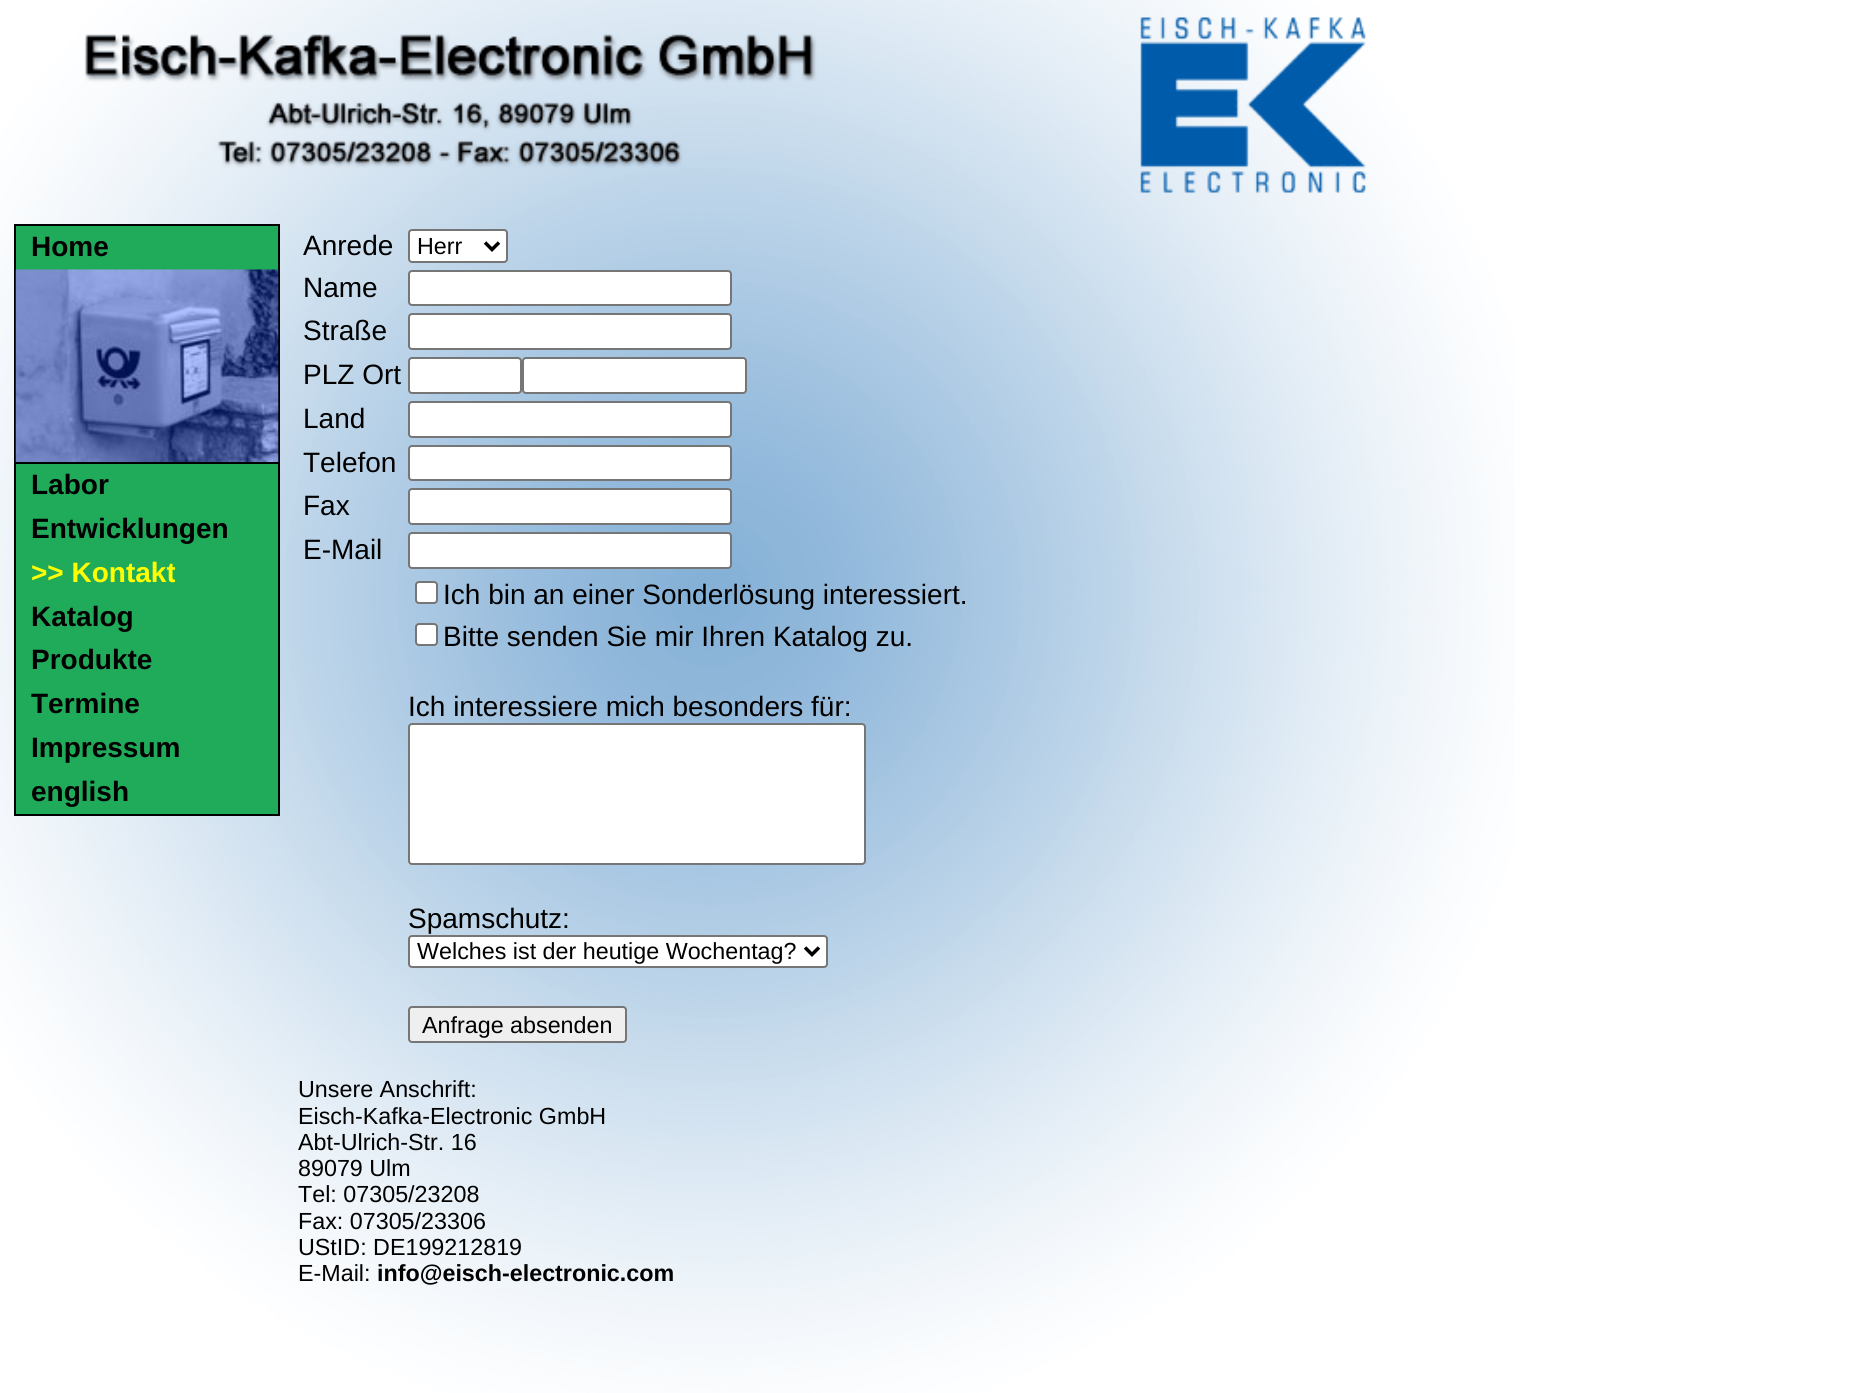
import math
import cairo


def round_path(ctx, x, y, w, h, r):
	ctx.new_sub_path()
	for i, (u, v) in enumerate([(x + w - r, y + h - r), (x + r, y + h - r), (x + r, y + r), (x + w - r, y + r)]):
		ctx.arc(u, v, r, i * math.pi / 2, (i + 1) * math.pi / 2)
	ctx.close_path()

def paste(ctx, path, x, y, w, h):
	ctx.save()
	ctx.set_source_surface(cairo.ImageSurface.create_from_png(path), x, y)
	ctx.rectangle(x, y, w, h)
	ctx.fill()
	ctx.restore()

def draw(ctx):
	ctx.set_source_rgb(1, 1, 1)
	ctx.paint()
	paste(ctx, 'media/1.png', 0, 0, 1515, 1393)
	ctx.set_source_rgb(0, 0, 0)
	ctx.rectangle(14, 224, 266, 2)
	ctx.rectangle(14, 226, 2, 590)
	ctx.fill()
	ctx.set_source_rgb(0.125, 0.671, 0.357)
	ctx.rectangle(16, 226, 262, 44)
	ctx.fill()
	ctx.select_font_face('Liberation Sans', cairo.FONT_SLANT_NORMAL, cairo.FONT_WEIGHT_BOLD)
	ctx.set_font_size(28)
	ctx.set_source_rgb(0, 0, 0)
	ctx.move_to(31, 256)
	ctx.show_text('Home')
	ctx.rectangle(278, 226, 2, 236)
	ctx.fill()
	paste(ctx, 'media/2.png', 15, 269, 264, 193)
	ctx.rectangle(16, 462, 264, 2)
	ctx.fill()
	ctx.set_source_rgb(0.125, 0.671, 0.357)
	ctx.rectangle(16, 464, 262, 350)
	ctx.fill()
	ctx.set_source_rgb(0, 0, 0)
	ctx.move_to(31, 494)
	ctx.show_text('Labor')
	ctx.rectangle(278, 464, 2, 350)
	ctx.fill()
	ctx.move_to(31, 538)
	ctx.show_text('Entwicklungen')
	ctx.set_source_rgb(1, 1, 0)
	ctx.move_to(31, 582)
	ctx.show_text('>> Kontakt')
	ctx.set_source_rgb(0, 0, 0)
	for x, y, s in [
		(31, 626, 'Katalog'),
		(31, 669, 'Produkte'),
		(31, 713, 'Termine'),
		(31, 757, 'Impressum'),
		(31, 801, 'english'),
	]:
		ctx.move_to(x, y)
		ctx.show_text(s)
	ctx.rectangle(16, 814, 264, 2)
	ctx.fill()
	ctx.select_font_face('Liberation Sans')
	ctx.move_to(303, 255)
	ctx.show_text('Anrede')
	ctx.set_source_rgb(1, 1, 1)
	round_path(ctx, 409, 230, 98, 32, 3)
	ctx.fill_preserve()
	ctx.set_source_rgb(0.463, 0.463, 0.463)
	ctx.stroke()
	ctx.new_path()
	ctx.move_to(485, 242.5)
	ctx.line_to(492, 249.5)
	ctx.line_to(499, 242.5)
	ctx.set_source_rgb(0, 0, 0)
	ctx.set_line_width(3.5)
	ctx.stroke()
	ctx.set_font_size(23.3)
	ctx.move_to(417, 254)
	ctx.show_text('Herr')
	ctx.set_font_size(28)
	ctx.move_to(303, 297)
	ctx.show_text('Name')
	ctx.set_source_rgb(1, 1, 1)
	round_path(ctx, 409, 271, 322, 34, 3)
	ctx.fill_preserve()
	ctx.set_source_rgb(0.463, 0.463, 0.463)
	ctx.set_line_width(2)
	ctx.stroke()
	ctx.set_source_rgb(0, 0, 0)
	ctx.move_to(303, 340)
	ctx.show_text('Straße')
	ctx.set_source_rgb(1, 1, 1)
	round_path(ctx, 409, 314, 322, 35, 3)
	ctx.fill_preserve()
	ctx.set_source_rgb(0.463, 0.463, 0.463)
	ctx.stroke()
	ctx.set_source_rgb(0, 0, 0)
	ctx.move_to(303, 384)
	ctx.show_text('PLZ Ort')
	ctx.set_source_rgb(1, 1, 1)
	round_path(ctx, 409, 358, 112, 35, 3)
	ctx.fill_preserve()
	ctx.set_source_rgb(0.463, 0.463, 0.463)
	ctx.stroke()
	ctx.set_source_rgb(1, 1, 1)
	round_path(ctx, 523, 358, 223, 35, 3)
	ctx.fill_preserve()
	ctx.set_source_rgb(0.463, 0.463, 0.463)
	ctx.stroke()
	ctx.set_source_rgb(0, 0, 0)
	ctx.move_to(303, 428)
	ctx.show_text('Land')
	ctx.set_source_rgb(1, 1, 1)
	round_path(ctx, 409, 402, 322, 35, 3)
	ctx.fill_preserve()
	ctx.set_source_rgb(0.463, 0.463, 0.463)
	ctx.stroke()
	ctx.set_source_rgb(0, 0, 0)
	ctx.move_to(303, 472)
	ctx.show_text('Telefon')
	ctx.set_source_rgb(1, 1, 1)
	round_path(ctx, 409, 446, 322, 34, 3)
	ctx.fill_preserve()
	ctx.set_source_rgb(0.463, 0.463, 0.463)
	ctx.stroke()
	ctx.set_source_rgb(0, 0, 0)
	ctx.move_to(303, 515)
	ctx.show_text('Fax')
	ctx.set_source_rgb(1, 1, 1)
	round_path(ctx, 409, 489, 322, 35, 3)
	ctx.fill_preserve()
	ctx.set_source_rgb(0.463, 0.463, 0.463)
	ctx.stroke()
	ctx.set_source_rgb(0, 0, 0)
	ctx.move_to(303, 559)
	ctx.show_text('E-Mail')
	ctx.set_source_rgb(1, 1, 1)
	round_path(ctx, 409, 533, 322, 35, 3)
	ctx.fill_preserve()
	ctx.set_source_rgb(0.463, 0.463, 0.463)
	ctx.stroke()
	ctx.set_source_rgb(1, 1, 1)
	round_path(ctx, 416, 582, 21, 21, 3)
	ctx.fill_preserve()
	ctx.set_source_rgb(0.463, 0.463, 0.463)
	ctx.stroke()
	ctx.set_source_rgb(0, 0, 0)
	ctx.move_to(443, 604)
	ctx.show_text('Ich bin an einer Sonderlösung interessiert.')
	ctx.set_source_rgb(1, 1, 1)
	round_path(ctx, 416, 624, 21, 21, 3)
	ctx.fill_preserve()
	ctx.set_source_rgb(0.463, 0.463, 0.463)
	ctx.stroke()
	ctx.set_source_rgb(0, 0, 0)
	ctx.move_to(443, 646)
	ctx.show_text('Bitte senden Sie mir Ihren Katalog zu.')
	ctx.move_to(408, 716)
	ctx.show_text('Ich interessiere mich besonders für:')
	ctx.set_source_rgb(1, 1, 1)
	round_path(ctx, 409, 724, 456, 140, 3)
	ctx.fill_preserve()
	ctx.set_source_rgb(0.463, 0.463, 0.463)
	ctx.stroke()
	ctx.set_source_rgb(0, 0, 0)
	ctx.move_to(408, 928)
	ctx.show_text('Spamschutz:')
	ctx.set_source_rgb(1, 1, 1)
	round_path(ctx, 409, 936, 418, 31, 3)
	ctx.fill_preserve()
	ctx.set_source_rgb(0.463, 0.463, 0.463)
	ctx.stroke()
	ctx.new_path()
	ctx.move_to(805, 947.5)
	ctx.line_to(812, 954.5)
	ctx.line_to(819, 947.5)
	ctx.set_source_rgb(0, 0, 0)
	ctx.set_line_width(3.5)
	ctx.stroke()
	ctx.set_font_size(23.3)
	ctx.move_to(417, 959)
	ctx.show_text('Welches ist der heutige Wochentag?')
	ctx.set_source_rgb(0.937, 0.937, 0.937)
	round_path(ctx, 409, 1007, 217, 35, 3)
	ctx.fill_preserve()
	ctx.set_source_rgb(0.463, 0.463, 0.463)
	ctx.set_line_width(2)
	ctx.stroke()
	ctx.set_source_rgb(0, 0, 0)
	for x, y, s in [
		(422, 1033, 'Anfrage absenden'),
		(298, 1097, 'Unsere Anschrift:'),
		(298, 1124, 'Eisch-Kafka-Electronic GmbH'),
		(298, 1150, 'Abt-Ulrich-Str. 16'),
		(298, 1176, '89079 Ulm'),
		(298, 1202, 'Tel: 07305/23208'),
		(298, 1229, 'Fax: 07305/23306'),
		(298, 1255, 'UStID: DE199212819'),
		(298, 1281, 'E-Mail:'),
	]:
		ctx.move_to(x, y)
		ctx.show_text(s)
	ctx.select_font_face('Liberation Sans', cairo.FONT_SLANT_NORMAL, cairo.FONT_WEIGHT_BOLD)
	ctx.move_to(377, 1281)
	ctx.show_text('info@eisch-electronic.com')


surface = cairo.ImageSurface(cairo.FORMAT_RGB24, 1873, 1393)
ctx = cairo.Context(surface)
options = cairo.FontOptions()
options.set_hint_metrics(cairo.HINT_METRICS_OFF)
options.set_hint_style(cairo.HINT_STYLE_NONE)
ctx.set_font_options(options)
ctx.set_miter_limit(4)
draw(ctx)
surface.write_to_png('image.png')
